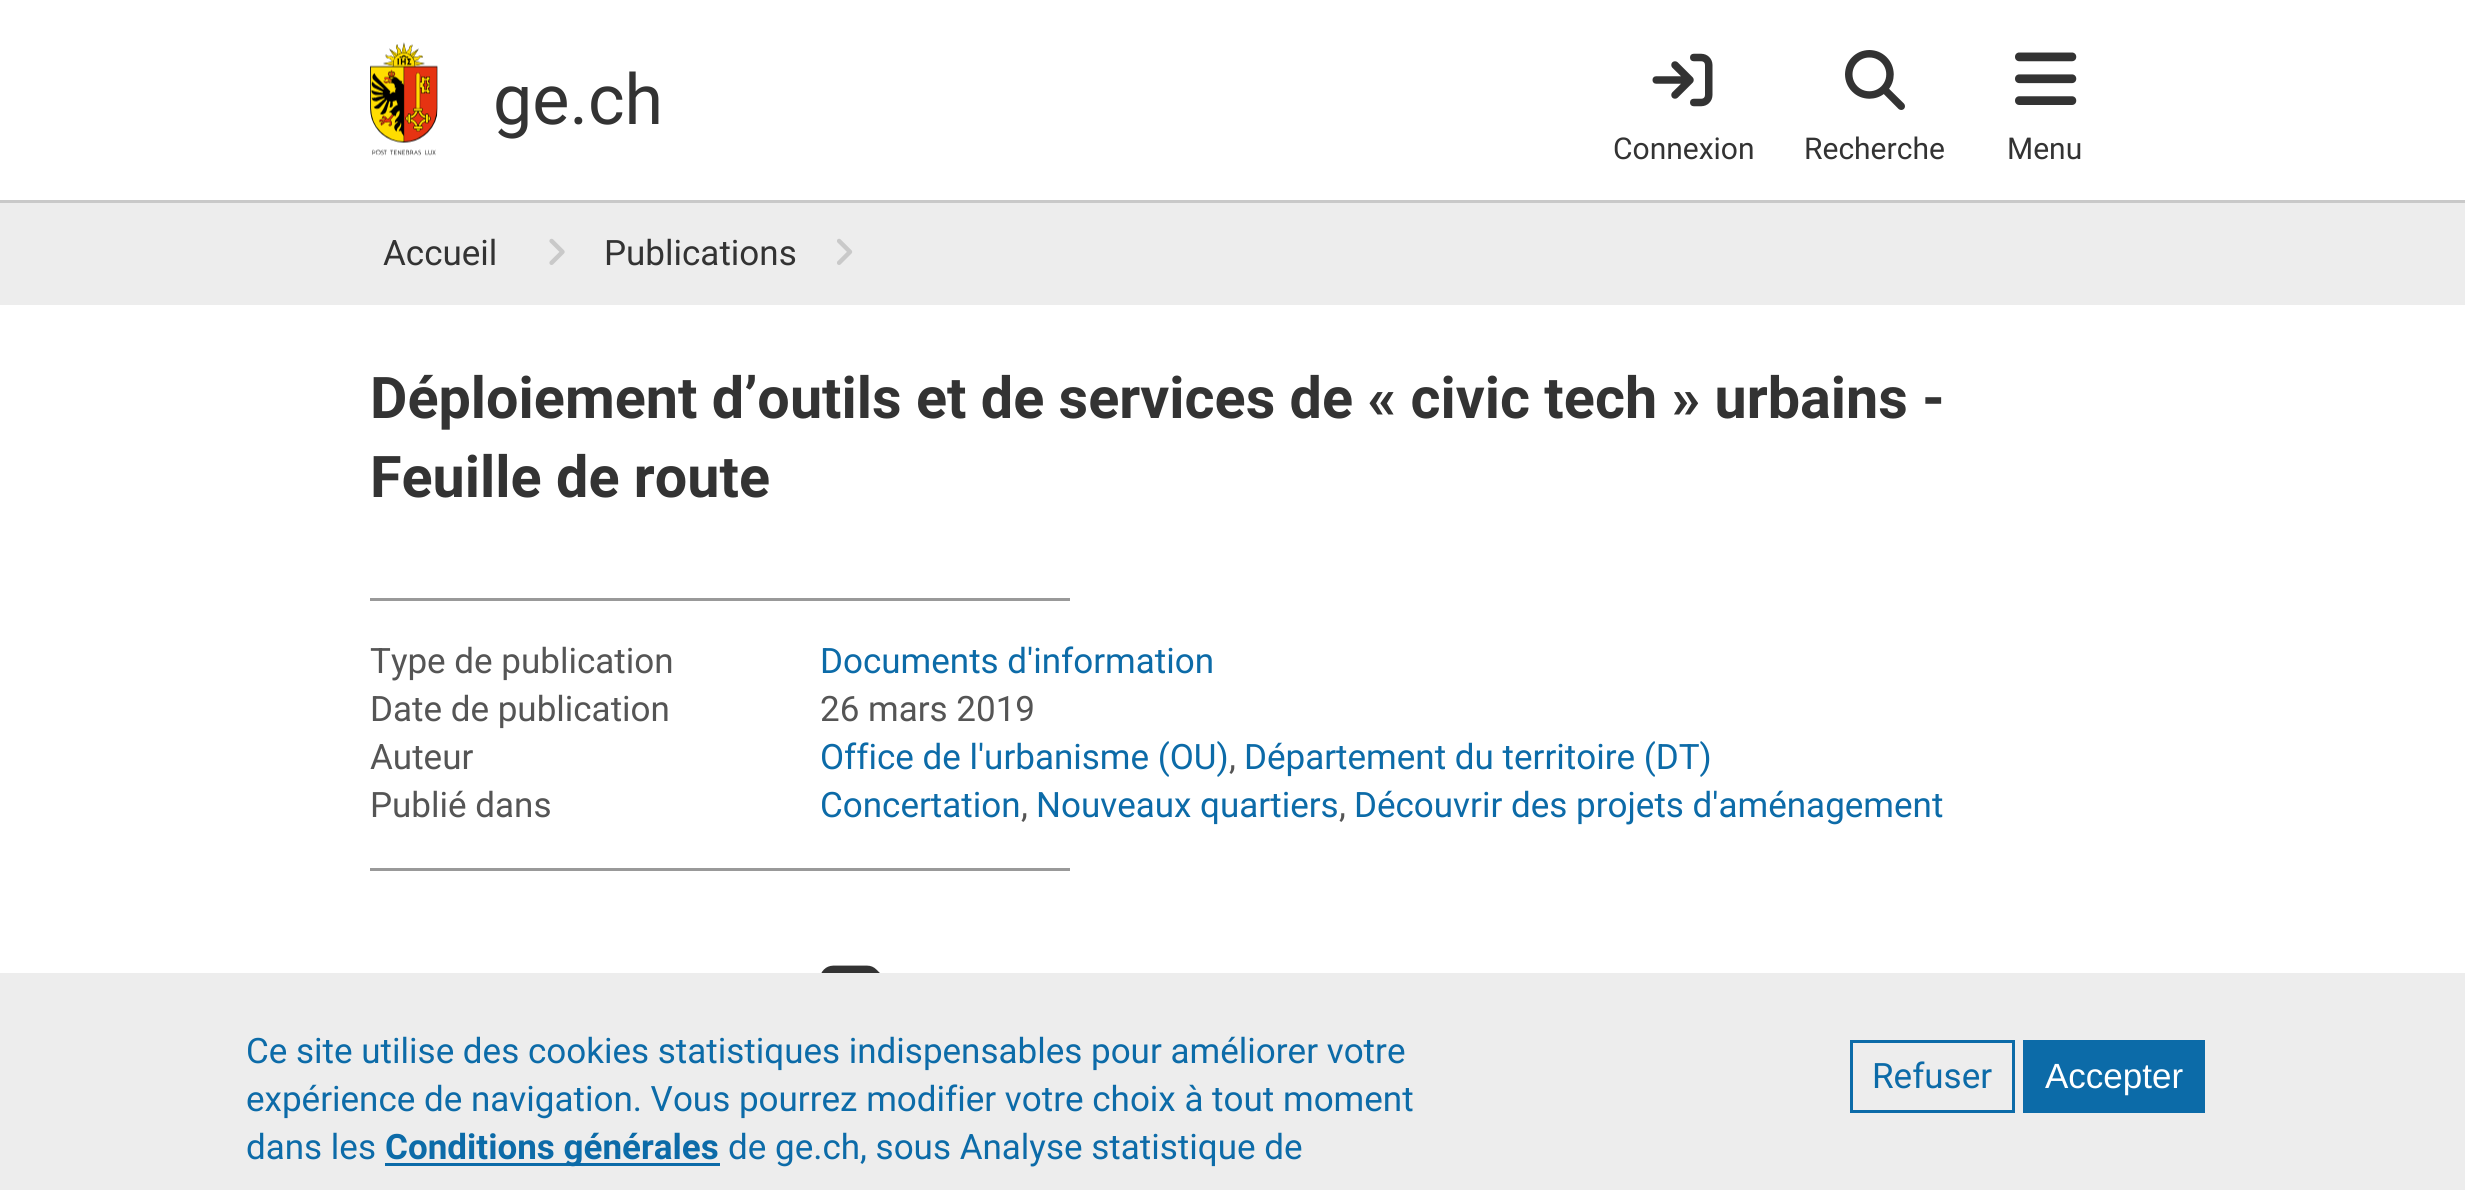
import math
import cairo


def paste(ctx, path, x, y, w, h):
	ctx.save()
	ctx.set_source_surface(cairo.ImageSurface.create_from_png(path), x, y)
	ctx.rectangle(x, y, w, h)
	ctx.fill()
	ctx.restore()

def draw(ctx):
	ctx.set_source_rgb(1, 1, 1)
	ctx.paint()
	ctx.set_source_rgb(0.788, 0.788, 0.788)
	ctx.rectangle(0, 200, 2465, 3)
	ctx.fill()
	paste(ctx, 'media/1.png', 370, 42, 68, 114)
	ctx.select_font_face('Roboto')
	ctx.set_font_size(70)
	ctx.set_source_rgb(0.2, 0.2, 0.2)
	ctx.move_to(493, 124)
	ctx.show_text('ge.ch')
	paste(ctx, 'media/2.png', 1652, 53, 61, 54)
	ctx.set_font_size(30)
	ctx.move_to(1613, 159)
	ctx.show_text('Connexion')
	paste(ctx, 'media/3.png', 1845, 50, 60, 60)
	ctx.move_to(1804, 159)
	ctx.show_text('Recherche')
	paste(ctx, 'media/4.png', 2015, 52, 62, 53)
	ctx.move_to(2007, 159)
	ctx.show_text('Menu')
	ctx.set_source_rgb(0.929, 0.929, 0.929)
	ctx.rectangle(0, 203, 2465, 102)
	ctx.fill()
	ctx.set_font_size(35)
	ctx.set_source_rgb(0.2, 0.2, 0.2)
	ctx.move_to(383, 265)
	ctx.show_text('Accueil')
	paste(ctx, 'media/5.png', 549, 238, 16, 27)
	ctx.move_to(604, 265)
	ctx.show_text('Publications')
	paste(ctx, 'media/6.png', 837, 238, 16, 27)
	ctx.select_font_face('Roboto', cairo.FONT_SLANT_NORMAL, cairo.FONT_WEIGHT_BOLD)
	ctx.set_font_size(57.5)
	ctx.move_to(370, 418)
	ctx.show_text('Déploiement d’outils et de services de « civic tech » urbains -')
	ctx.move_to(370, 497)
	ctx.show_text('Feuille de route')
	ctx.set_source_rgb(0.6, 0.6, 0.6)
	ctx.rectangle(370, 598, 700, 3)
	ctx.fill()
	ctx.select_font_face('Roboto')
	ctx.set_font_size(35)
	ctx.set_source_rgb(0.333, 0.333, 0.333)
	ctx.move_to(370, 673)
	ctx.show_text('Type de publication')
	ctx.set_source_rgb(0.047, 0.42, 0.659)
	ctx.move_to(820, 673)
	ctx.show_text('Documents d\'information')
	ctx.set_source_rgb(0.333, 0.333, 0.333)
	for x, y, s in [
		(370, 721, 'Date de publication'),
		(820, 721, '26 mars 2019'),
		(370, 769, 'Auteur'),
	]:
		ctx.move_to(x, y)
		ctx.show_text(s)
	ctx.set_source_rgb(0.047, 0.42, 0.659)
	ctx.move_to(820, 769)
	ctx.show_text('Office de l\'urbanisme (OU)')
	ctx.set_source_rgb(0.333, 0.333, 0.333)
	ctx.move_to(1229, 769)
	ctx.show_text(',')
	ctx.set_source_rgb(0.047, 0.42, 0.659)
	ctx.move_to(1244, 769)
	ctx.show_text('Département du territoire (DT)')
	ctx.set_source_rgb(0.333, 0.333, 0.333)
	ctx.move_to(370, 817)
	ctx.show_text('Publié dans')
	ctx.set_source_rgb(0.047, 0.42, 0.659)
	ctx.move_to(820, 817)
	ctx.show_text('Concertation')
	ctx.set_source_rgb(0.333, 0.333, 0.333)
	ctx.move_to(1021, 817)
	ctx.show_text(',')
	ctx.set_source_rgb(0.047, 0.42, 0.659)
	ctx.move_to(1036, 817)
	ctx.show_text('Nouveaux quartiers')
	ctx.set_source_rgb(0.333, 0.333, 0.333)
	ctx.move_to(1339, 817)
	ctx.show_text(',')
	ctx.set_source_rgb(0.047, 0.42, 0.659)
	ctx.move_to(1354, 817)
	ctx.show_text('Découvrir des projets d\'aménagement')
	ctx.set_source_rgb(0.6, 0.6, 0.6)
	ctx.rectangle(370, 868, 700, 3)
	ctx.fill()
	paste(ctx, 'media/7.png', 821, 965, 59, 8)
	ctx.set_source_rgb(0.929, 0.929, 0.929)
	ctx.rectangle(0, 973, 2465, 217)
	ctx.fill()
	ctx.set_source_rgb(0.047, 0.42, 0.659)
	for x, y, s in [
		(246, 1063, 'Ce site utilise des cookies statistiques indispensables pour améliorer votre'),
		(246, 1111, 'expérience de navigation. Vous pourrez modifier votre choix à tout moment'),
		(246, 1159, 'dans les'),
	]:
		ctx.move_to(x, y)
		ctx.show_text(s)
	ctx.rectangle(385, 1163, 335, 3)
	ctx.fill()
	ctx.select_font_face('Roboto', cairo.FONT_SLANT_NORMAL, cairo.FONT_WEIGHT_BOLD)
	ctx.move_to(385, 1159)
	ctx.show_text('Conditions générales')
	ctx.select_font_face('Roboto')
	ctx.move_to(728, 1159)
	ctx.show_text('de ge.ch, sous Analyse statistique de')
	ctx.rectangle(1851.5, 1041.5, 162, 70)
	ctx.set_line_width(3)
	ctx.stroke()
	ctx.move_to(1872, 1088)
	ctx.show_text('Refuser')
	ctx.rectangle(2023, 1040, 182, 73)
	ctx.fill()
	ctx.select_font_face('Liberation Sans')
	ctx.set_source_rgb(1, 1, 1)
	ctx.move_to(2045, 1088)
	ctx.show_text('Accepter')


surface = cairo.ImageSurface(cairo.FORMAT_RGB24, 2465, 1190)
ctx = cairo.Context(surface)
options = cairo.FontOptions()
options.set_hint_metrics(cairo.HINT_METRICS_OFF)
options.set_hint_style(cairo.HINT_STYLE_NONE)
ctx.set_font_options(options)
ctx.set_miter_limit(4)
draw(ctx)
surface.write_to_png('image.png')
